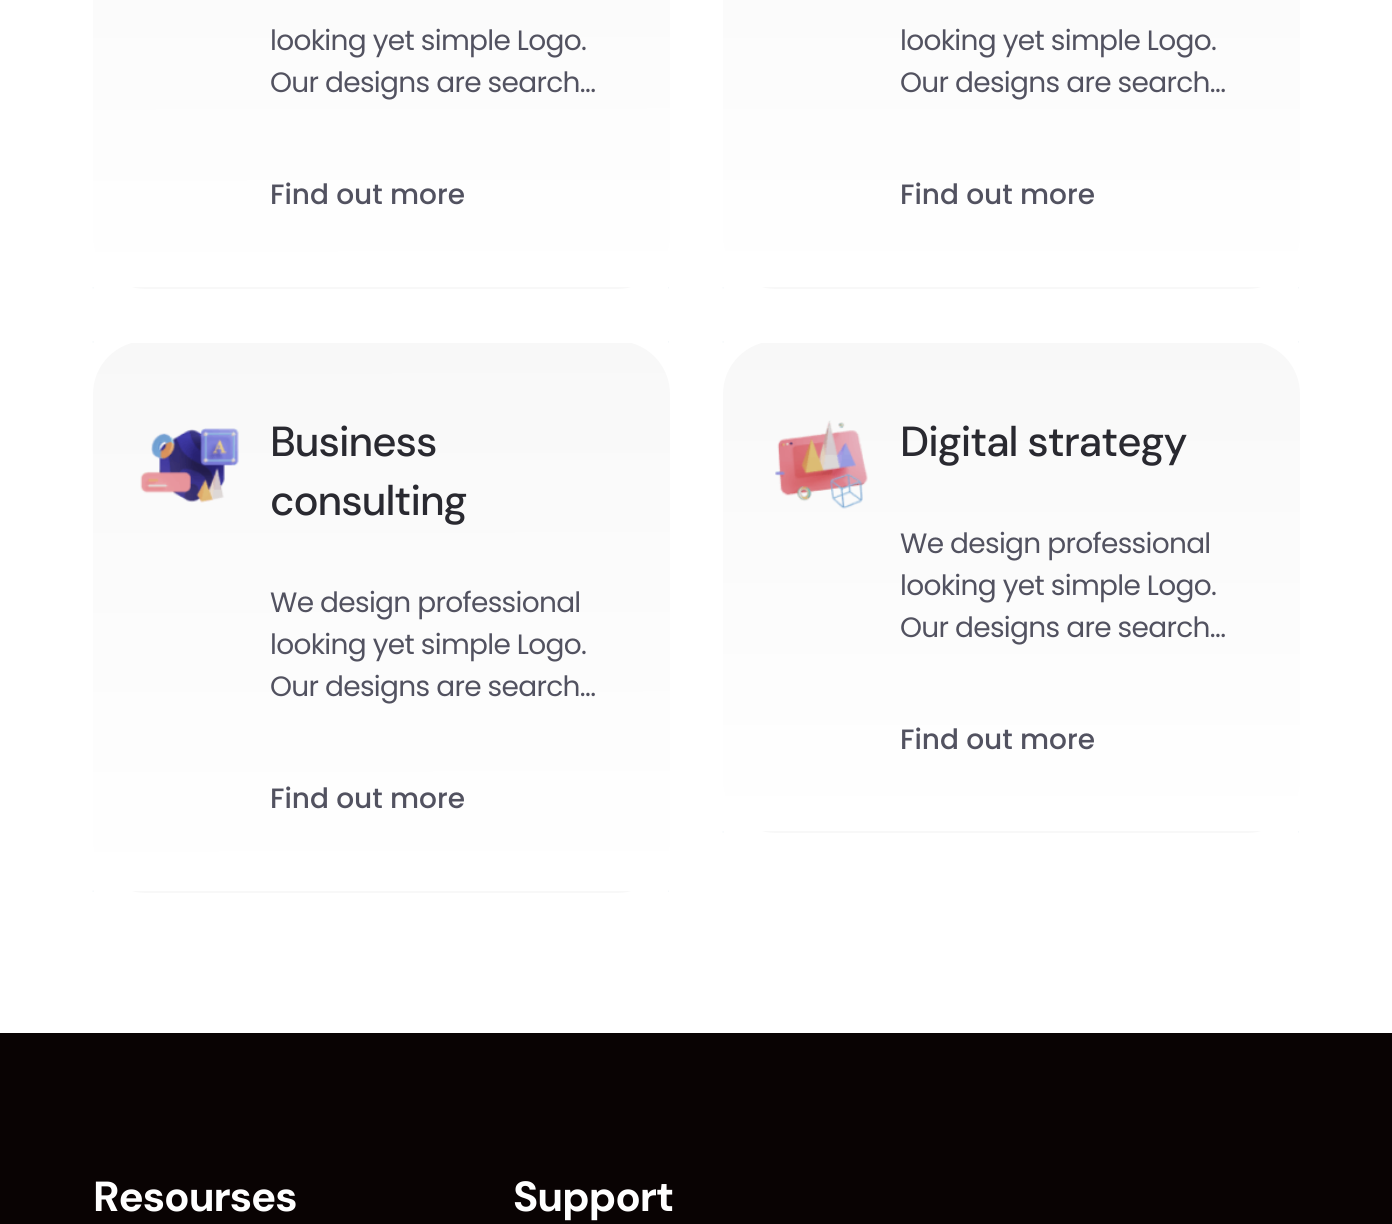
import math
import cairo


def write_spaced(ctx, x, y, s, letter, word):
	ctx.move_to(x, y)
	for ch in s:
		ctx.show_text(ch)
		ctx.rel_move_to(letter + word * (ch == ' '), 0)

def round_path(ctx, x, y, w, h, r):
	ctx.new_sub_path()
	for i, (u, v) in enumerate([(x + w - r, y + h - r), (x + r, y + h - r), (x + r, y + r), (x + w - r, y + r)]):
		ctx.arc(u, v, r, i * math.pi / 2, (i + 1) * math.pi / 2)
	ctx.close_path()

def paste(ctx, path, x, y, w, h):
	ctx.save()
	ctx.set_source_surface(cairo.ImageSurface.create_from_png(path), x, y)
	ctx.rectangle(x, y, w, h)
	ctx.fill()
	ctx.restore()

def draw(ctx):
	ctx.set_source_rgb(1, 1, 1)
	ctx.paint()
	ctx.save()
	round_path(ctx, 93, -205, 577, 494, 53)
	ctx.clip()
	gradient = cairo.LinearGradient(381, -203, 382, 287)
	gradient.add_color_stop_rgba(0, 0.973, 0.973, 0.973, 1)
	gradient.add_color_stop_rgba(1, 1, 1, 1, 1)
	ctx.set_source(gradient)
	ctx.rectangle(93, 0, 577, 287)
	ctx.fill()
	gradient = cairo.LinearGradient(381, 287, 382, 777)
	gradient.add_color_stop_rgba(0, 0.973, 0.973, 0.973, 1)
	gradient.add_color_stop_rgba(1, 1, 1, 1, 1)
	ctx.set_source(gradient)
	ctx.rectangle(132, 287, 499, 2)
	ctx.fill()
	ctx.restore()
	paste(ctx, 'media/1.png', 92, 287, 577, 2)
	ctx.select_font_face('Poppins')
	ctx.set_font_size(28)
	ctx.set_source_rgb(0.322, 0.322, 0.376)
	write_spaced(ctx, 270, 50, 'looking yet simple Logo.', -0.7, 0)
	write_spaced(ctx, 270, 92, 'Our designs are search…', -0.7, 0)
	ctx.select_font_face('Poppins Medium')
	ctx.move_to(270, 204)
	ctx.show_text('Find out more')
	ctx.save()
	round_path(ctx, 723, -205, 577, 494, 53)
	ctx.clip()
	gradient = cairo.LinearGradient(1012, -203, 1012, 287)
	gradient.add_color_stop_rgba(0, 0.973, 0.973, 0.973, 1)
	gradient.add_color_stop_rgba(1, 1, 1, 1, 1)
	ctx.set_source(gradient)
	ctx.rectangle(723, 0, 577, 287)
	ctx.fill()
	gradient = cairo.LinearGradient(1012, 287, 1012, 777)
	gradient.add_color_stop_rgba(0, 0.973, 0.973, 0.973, 1)
	gradient.add_color_stop_rgba(1, 1, 1, 1, 1)
	ctx.set_source(gradient)
	ctx.rectangle(762, 287, 499, 2)
	ctx.fill()
	ctx.restore()
	paste(ctx, 'media/2.png', 722, 287, 577, 2)
	ctx.select_font_face('Poppins')
	write_spaced(ctx, 900, 50, 'looking yet simple Logo.', -0.7, 0)
	write_spaced(ctx, 900, 92, 'Our designs are search…', -0.7, 0)
	ctx.select_font_face('Poppins Medium')
	ctx.move_to(900, 204)
	ctx.show_text('Find out more')
	ctx.save()
	round_path(ctx, 93, 341, 577, 552, 53)
	ctx.clip()
	gradient = cairo.LinearGradient(381, 343, 382, 891)
	gradient.add_color_stop_rgba(0, 0.973, 0.973, 0.973, 1)
	gradient.add_color_stop_rgba(1, 1, 1, 1, 1)
	ctx.set_source(gradient)
	ctx.rectangle(93, 343, 577, 548)
	ctx.fill()
	gradient = cairo.LinearGradient(381, 891, 382, 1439)
	gradient.add_color_stop_rgba(0, 0.973, 0.973, 0.973, 1)
	gradient.add_color_stop_rgba(1, 1, 1, 1, 1)
	ctx.set_source(gradient)
	ctx.rectangle(132, 891, 499, 2)
	ctx.fill()
	ctx.restore()
	paste(ctx, 'media/3.png', 92, 341, 577, 551)
	paste(ctx, 'media/4.png', 140, 428, 99, 75)
	ctx.select_font_face('DM Sans Medium')
	ctx.set_font_size(42)
	ctx.set_source_rgb(0.161, 0.161, 0.188)
	write_spaced(ctx, 270, 456, 'Business', -1, 0)
	write_spaced(ctx, 270, 515, 'consulting', -1, 0)
	ctx.select_font_face('Poppins')
	ctx.set_font_size(28)
	ctx.set_source_rgb(0.322, 0.322, 0.376)
	for x, y, s in [
		(270, 612, 'We design professional'),
		(270, 654, 'looking yet simple Logo.'),
		(270, 696, 'Our designs are search…'),
	]:
		write_spaced(ctx, x, y, s, -0.7, 0)
	ctx.select_font_face('Poppins Medium')
	ctx.move_to(270, 808)
	ctx.show_text('Find out more')
	ctx.save()
	round_path(ctx, 723, 341, 577, 492, 53)
	ctx.clip()
	gradient = cairo.LinearGradient(1012, 343, 1012, 831)
	gradient.add_color_stop_rgba(0, 0.973, 0.973, 0.973, 1)
	gradient.add_color_stop_rgba(1, 1, 1, 1, 1)
	ctx.set_source(gradient)
	ctx.rectangle(723, 343, 577, 488)
	ctx.fill()
	gradient = cairo.LinearGradient(1012, 831, 1012, 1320)
	gradient.add_color_stop_rgba(0, 0.973, 0.973, 0.973, 1)
	gradient.add_color_stop_rgba(1, 1, 1, 1, 1)
	ctx.set_source(gradient)
	ctx.rectangle(762, 831, 499, 2)
	ctx.fill()
	ctx.restore()
	paste(ctx, 'media/5.png', 722, 341, 577, 492)
	paste(ctx, 'media/6.png', 775, 420, 93, 89)
	ctx.select_font_face('DM Sans Medium')
	ctx.set_font_size(42)
	ctx.set_source_rgb(0.161, 0.161, 0.188)
	write_spaced(ctx, 900, 456, 'Digital strategy', -1, 0)
	ctx.select_font_face('Poppins')
	ctx.set_font_size(28)
	ctx.set_source_rgb(0.322, 0.322, 0.376)
	for x, y, s in [
		(900, 553, 'We design professional'),
		(900, 595, 'looking yet simple Logo.'),
		(900, 637, 'Our designs are search…'),
	]:
		write_spaced(ctx, x, y, s, -0.7, 0)
	ctx.select_font_face('Poppins Medium')
	ctx.move_to(900, 749)
	ctx.show_text('Find out more')
	ctx.set_source_rgb(0.039, 0.012, 0.012)
	ctx.rectangle(0, 1033, 1392, 191)
	ctx.fill()
	ctx.select_font_face('DM Sans', cairo.FONT_SLANT_NORMAL, cairo.FONT_WEIGHT_BOLD)
	ctx.set_font_size(42)
	ctx.set_source_rgb(1, 1, 1)
	write_spaced(ctx, 93, 1211, 'Resourses', -1, 0)
	write_spaced(ctx, 513, 1211, 'Support', -1, 0)


surface = cairo.ImageSurface(cairo.FORMAT_RGB24, 1392, 1224)
ctx = cairo.Context(surface)
options = cairo.FontOptions()
options.set_hint_metrics(cairo.HINT_METRICS_OFF)
options.set_hint_style(cairo.HINT_STYLE_NONE)
ctx.set_font_options(options)
ctx.set_miter_limit(4)
draw(ctx)
surface.write_to_png('image.png')
